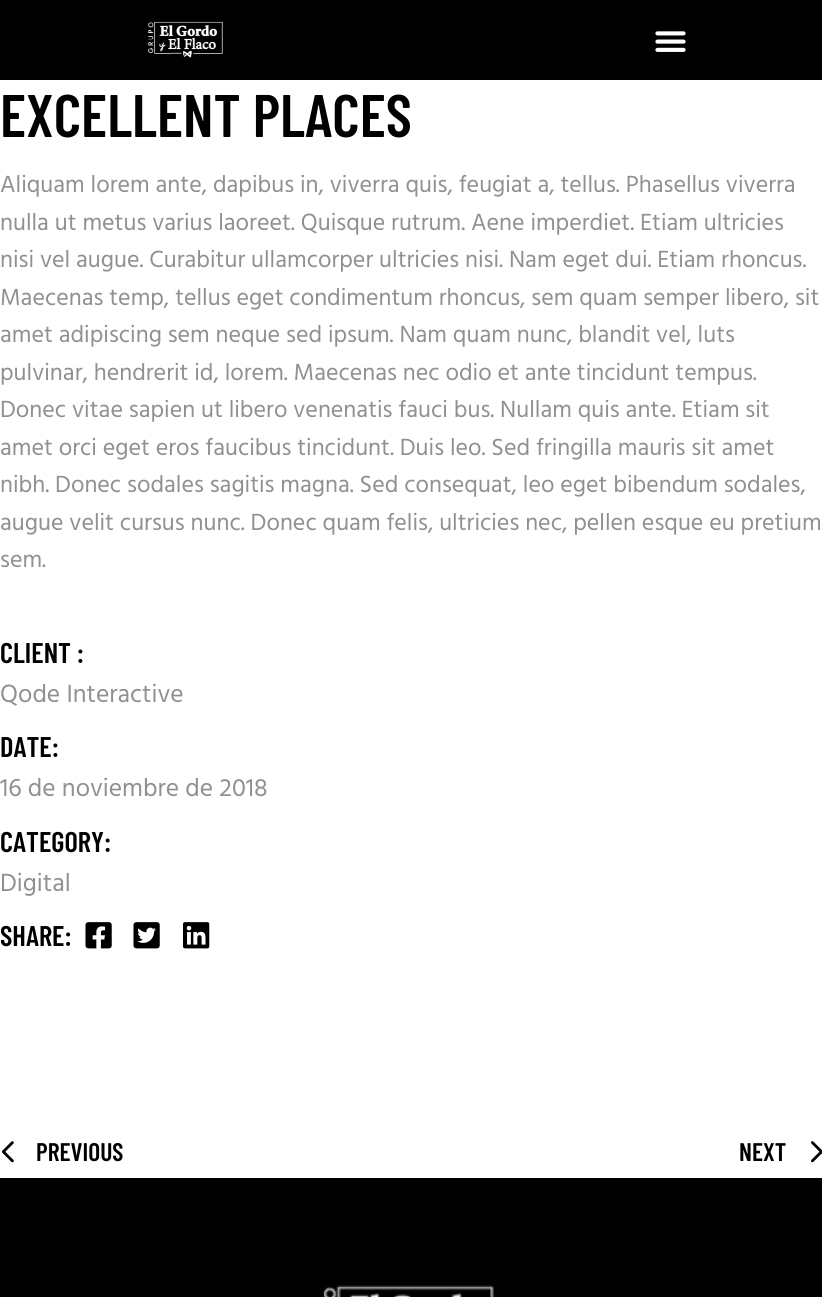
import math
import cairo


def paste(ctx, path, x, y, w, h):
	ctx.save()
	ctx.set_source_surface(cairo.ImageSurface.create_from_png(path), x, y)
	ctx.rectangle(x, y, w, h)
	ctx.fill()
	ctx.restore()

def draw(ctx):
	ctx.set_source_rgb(1, 1, 1)
	ctx.paint()
	ctx.set_source_rgb(0, 0, 0)
	ctx.rectangle(0, 0, 822, 80)
	ctx.fill()
	paste(ctx, 'media/1.png', 148, 21, 75, 37)
	paste(ctx, 'media/2.png', 655, 31, 31, 21)
	ctx.select_font_face('Barlow Condensed SemiBold')
	ctx.set_font_size(60)
	ctx.move_to(0, 137)
	ctx.show_text('EXCELLENT PLACES')
	ctx.select_font_face('Hind')
	ctx.set_font_size(24)
	ctx.set_source_rgb(0.565, 0.565, 0.565)
	for x, y, s in [
		(0, 192, 'Aliquam lorem ante, dapibus in, viverra quis, feugiat a, tellus. Phasellus viverra'),
		(0, 230, 'nulla ut metus varius laoreet. Quisque rutrum. Aene imperdiet. Etiam ultricies'),
		(0, 267, 'nisi vel augue. Curabitur ullamcorper ultricies nisi. Nam eget dui. Etiam rhoncus.'),
		(0, 305, 'Maecenas temp, tellus eget condimentum rhoncus, sem quam semper libero, sit'),
		(0, 342, 'amet adipiscing sem neque sed ipsum. Nam quam nunc, blandit vel, luts'),
		(0, 380, 'pulvinar, hendrerit id, lorem. Maecenas nec odio et ante tincidunt tempus.'),
		(0, 417, 'Donec vitae sapien ut libero venenatis fauci bus. Nullam quis ante. Etiam sit'),
		(0, 455, 'amet orci eget eros faucibus tincidunt. Duis leo. Sed fringilla mauris sit amet'),
		(0, 492, 'nibh. Donec sodales sagitis magna. Sed consequat, leo eget bibendum sodales,'),
		(0, 530, 'augue velit cursus nunc. Donec quam felis, ultricies nec, pellen esque eu pretium'),
		(0, 567, 'sem.'),
	]:
		ctx.move_to(x, y)
		ctx.show_text(s)
	ctx.select_font_face('Barlow Condensed SemiBold')
	ctx.set_font_size(28.5)
	ctx.set_source_rgb(0, 0, 0)
	ctx.move_to(0, 663)
	ctx.show_text('CLIENT :')
	ctx.select_font_face('Hind')
	ctx.set_font_size(25.5)
	ctx.set_source_rgb(0.565, 0.565, 0.565)
	ctx.move_to(0, 702)
	ctx.show_text('Qode Interactive')
	ctx.select_font_face('Barlow Condensed SemiBold')
	ctx.set_font_size(28.5)
	ctx.set_source_rgb(0, 0, 0)
	ctx.move_to(0, 757)
	ctx.show_text('DATE:')
	ctx.select_font_face('Hind')
	ctx.set_font_size(25.5)
	ctx.set_source_rgb(0.565, 0.565, 0.565)
	ctx.move_to(0, 796)
	ctx.show_text('16 de noviembre de 2018')
	ctx.select_font_face('Barlow Condensed SemiBold')
	ctx.set_font_size(28.5)
	ctx.set_source_rgb(0, 0, 0)
	ctx.move_to(0, 852)
	ctx.show_text('CATEGORY:')
	ctx.select_font_face('Hind')
	ctx.set_font_size(25.5)
	ctx.set_source_rgb(0.565, 0.565, 0.565)
	ctx.move_to(0, 891)
	ctx.show_text('Digital')
	ctx.select_font_face('Barlow Condensed SemiBold')
	ctx.set_font_size(28.5)
	ctx.set_source_rgb(0, 0, 0)
	ctx.move_to(0, 946)
	ctx.show_text('SHARE:')
	paste(ctx, 'media/3.png', 85, 922, 27, 27)
	paste(ctx, 'media/4.png', 133, 922, 27, 27)
	paste(ctx, 'media/5.png', 183, 922, 27, 27)
	paste(ctx, 'media/6.png', 1, 1141, 13, 22)
	ctx.set_font_size(25.5)
	ctx.move_to(36, 1161)
	ctx.show_text('PREVIOUS')
	ctx.move_to(739, 1161)
	ctx.show_text('NEXT')
	paste(ctx, 'media/7.png', 811, 1141, 11, 22)
	ctx.rectangle(0, 1178, 822, 119)
	ctx.fill()
	paste(ctx, 'media/8.png', 323, 1285, 171, 12)


surface = cairo.ImageSurface(cairo.FORMAT_RGB24, 822, 1297)
ctx = cairo.Context(surface)
options = cairo.FontOptions()
options.set_hint_metrics(cairo.HINT_METRICS_OFF)
options.set_hint_style(cairo.HINT_STYLE_NONE)
ctx.set_font_options(options)
ctx.set_miter_limit(4)
draw(ctx)
surface.write_to_png('image.png')
